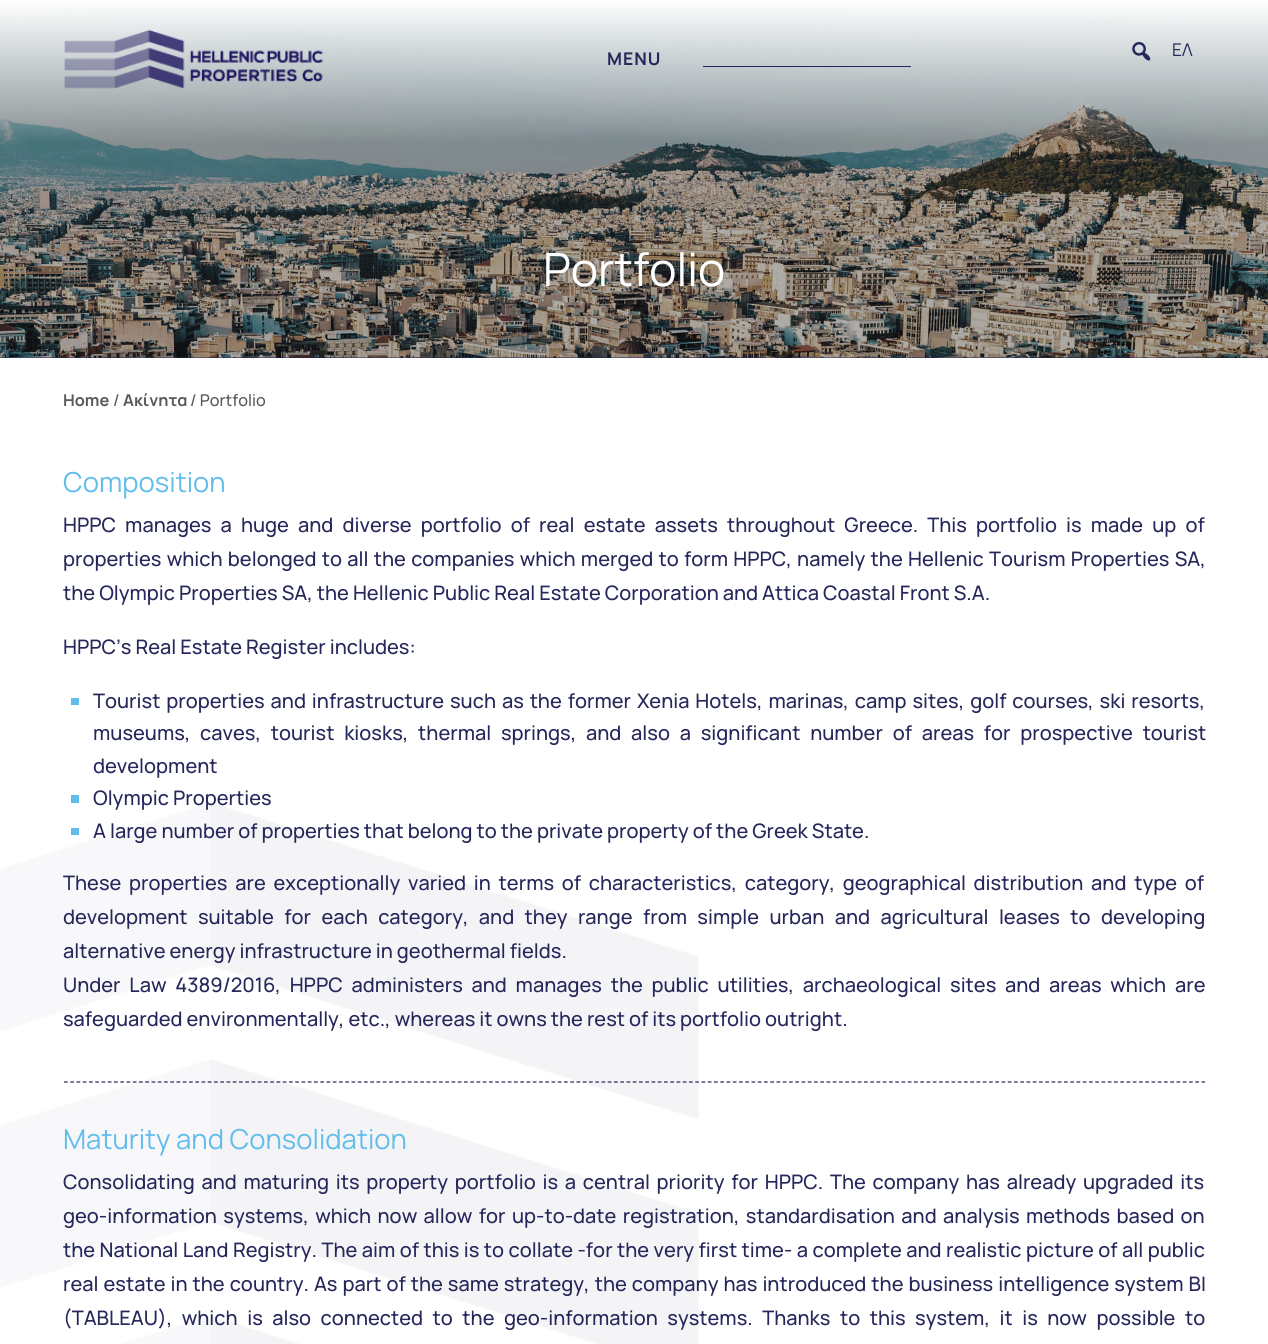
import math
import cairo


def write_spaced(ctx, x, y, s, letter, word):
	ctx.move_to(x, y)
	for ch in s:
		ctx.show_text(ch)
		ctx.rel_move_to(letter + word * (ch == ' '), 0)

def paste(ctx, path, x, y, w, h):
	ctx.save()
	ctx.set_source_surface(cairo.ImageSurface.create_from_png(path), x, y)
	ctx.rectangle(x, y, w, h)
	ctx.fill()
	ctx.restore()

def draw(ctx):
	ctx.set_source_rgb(1, 1, 1)
	ctx.paint()
	ctx.set_source_rgb(0.149, 0.153, 0.357)
	ctx.rectangle(0, 357, 1268, 1)
	ctx.fill()
	paste(ctx, 'media/1.png', 0, 0, 1268, 358)
	paste(ctx, 'media/2.png', 64, 29, 259, 60)
	paste(ctx, 'media/3.png', 1132, 42, 19, 19)
	ctx.select_font_face('Manrope')
	ctx.set_font_size(17.5)
	ctx.move_to(1172, 56)
	ctx.show_text('ΕΛ')
	ctx.select_font_face('Manrope', cairo.FONT_SLANT_NORMAL, cairo.FONT_WEIGHT_BOLD)
	write_spaced(ctx, 607, 65, 'MENU', 1, 0)
	ctx.rectangle(703, 66, 208, 1)
	ctx.fill()
	ctx.select_font_face('Manrope')
	ctx.set_font_size(46)
	ctx.set_source_rgb(1, 1, 1)
	ctx.move_to(543, 286)
	ctx.show_text('Portfolio')
	paste(ctx, 'media/4.png', 0, 803, 699, 541)
	ctx.select_font_face('Manrope', cairo.FONT_SLANT_NORMAL, cairo.FONT_WEIGHT_BOLD)
	ctx.set_font_size(16.25)
	ctx.set_source_rgb(0.353, 0.353, 0.353)
	ctx.move_to(63, 406)
	ctx.show_text('Home')
	ctx.select_font_face('Manrope Medium')
	ctx.move_to(113, 406)
	ctx.show_text('/')
	ctx.select_font_face('Manrope', cairo.FONT_SLANT_NORMAL, cairo.FONT_WEIGHT_BOLD)
	ctx.move_to(123, 406)
	ctx.show_text('Ακίνητα')
	ctx.select_font_face('Manrope Medium')
	ctx.move_to(190, 406)
	ctx.show_text('/ Portfolio')
	ctx.select_font_face('Manrope')
	ctx.set_font_size(27.5)
	ctx.set_source_rgb(0.388, 0.741, 0.918)
	ctx.move_to(63, 492)
	ctx.show_text('Composition')
	ctx.select_font_face('Manrope Medium')
	ctx.set_font_size(20)
	ctx.set_source_rgb(0.149, 0.153, 0.357)
	write_spaced(ctx, 63, 532, 'HPPC manages a huge and diverse portfolio of real estate assets throughout Greece. This portfolio is made up of', 0, 5.1)
	write_spaced(ctx, 63, 566, 'properties which belonged to all the companies which merged to form HPPC, namely the Hellenic Tourism Properties SA,', 0, 1.25)
	ctx.move_to(63, 600)
	ctx.show_text('the Olympic Properties SA, the Hellenic Public Real Estate Corporation and Attica Coastal Front S.A.')
	ctx.move_to(63, 654)
	ctx.show_text('HPPC’s Real Estate Register includes:')
	ctx.set_source_rgb(0.388, 0.741, 0.918)
	ctx.rectangle(71, 698, 8, 7)
	ctx.fill()
	ctx.set_source_rgb(0.149, 0.153, 0.357)
	write_spaced(ctx, 93, 708, 'Tourist properties and infrastructure such as the former Xenia Hotels, marinas, camp sites, golf courses, ski resorts,', 0, 1.9)
	write_spaced(ctx, 93, 740, 'museums, caves, tourist kiosks, thermal springs, and also a significant number of areas for prospective tourist', 0, 5.75)
	ctx.move_to(93, 773)
	ctx.show_text('development')
	ctx.set_source_rgb(0.388, 0.741, 0.918)
	ctx.rectangle(71, 795, 8, 8)
	ctx.fill()
	ctx.set_source_rgb(0.149, 0.153, 0.357)
	ctx.move_to(93, 805)
	ctx.show_text('Olympic Properties')
	ctx.set_source_rgb(0.388, 0.741, 0.918)
	ctx.rectangle(71, 828, 8, 7)
	ctx.fill()
	ctx.set_source_rgb(0.149, 0.153, 0.357)
	ctx.move_to(93, 838)
	ctx.show_text('A large number of properties that belong to the private property of the Greek State.')
	write_spaced(ctx, 63, 890, 'These properties are exceptionally varied in terms of characteristics, category, geographical distribution and type of', 0, 3.75)
	write_spaced(ctx, 63, 924, 'development suitable for each category, and they range from simple urban and agricultural leases to developing', 0, 6.4)
	ctx.move_to(63, 958)
	ctx.show_text('alternative energy infrastructure in geothermal fields.')
	write_spaced(ctx, 63, 992, 'Under Law 4389/2016, HPPC administers and manages the public utilities, archaeological sites and areas which are', 0, 4.75)
	ctx.move_to(63, 1026)
	ctx.show_text('safeguarded environmentally, etc., whereas it owns the rest of its portfolio outright.')
	ctx.new_path()
	ctx.move_to(64, 1082)
	ctx.line_to(1205, 1082)
	ctx.set_line_width(1.2)
	ctx.set_dash([3.75, 2.5])
	ctx.stroke()
	ctx.select_font_face('Manrope')
	ctx.set_font_size(27.5)
	ctx.set_source_rgb(0.388, 0.741, 0.918)
	ctx.move_to(63, 1149)
	ctx.show_text('Maturity and Consolidation')
	ctx.select_font_face('Manrope Medium')
	ctx.set_font_size(20)
	ctx.set_source_rgb(0.149, 0.153, 0.357)
	write_spaced(ctx, 63, 1189, 'Consolidating and maturing its property portfolio is a central priority for HPPC. The company has already upgraded its', 0, 2.75)
	write_spaced(ctx, 63, 1223, 'geo-information systems, which now allow for up-to-date registration, standardisation and analysis methods based on', 0, 2.4)
	write_spaced(ctx, 63, 1257, 'the National Land Registry. The aim of this is to collate -for the very first time- a complete and realistic picture of all public', 0, 0.45)
	write_spaced(ctx, 63, 1291, 'real estate in the country. As part of the same strategy, the company has introduced the business intelligence system BI', 0, 1)
	write_spaced(ctx, 63, 1325, '(TABLEAU), which is also connected to the geo-information systems. Thanks to this system, it is now possible to', 0, 5.5)


surface = cairo.ImageSurface(cairo.FORMAT_RGB24, 1268, 1344)
ctx = cairo.Context(surface)
options = cairo.FontOptions()
options.set_hint_metrics(cairo.HINT_METRICS_OFF)
options.set_hint_style(cairo.HINT_STYLE_NONE)
ctx.set_font_options(options)
ctx.set_miter_limit(4)
draw(ctx)
surface.write_to_png('image.png')
